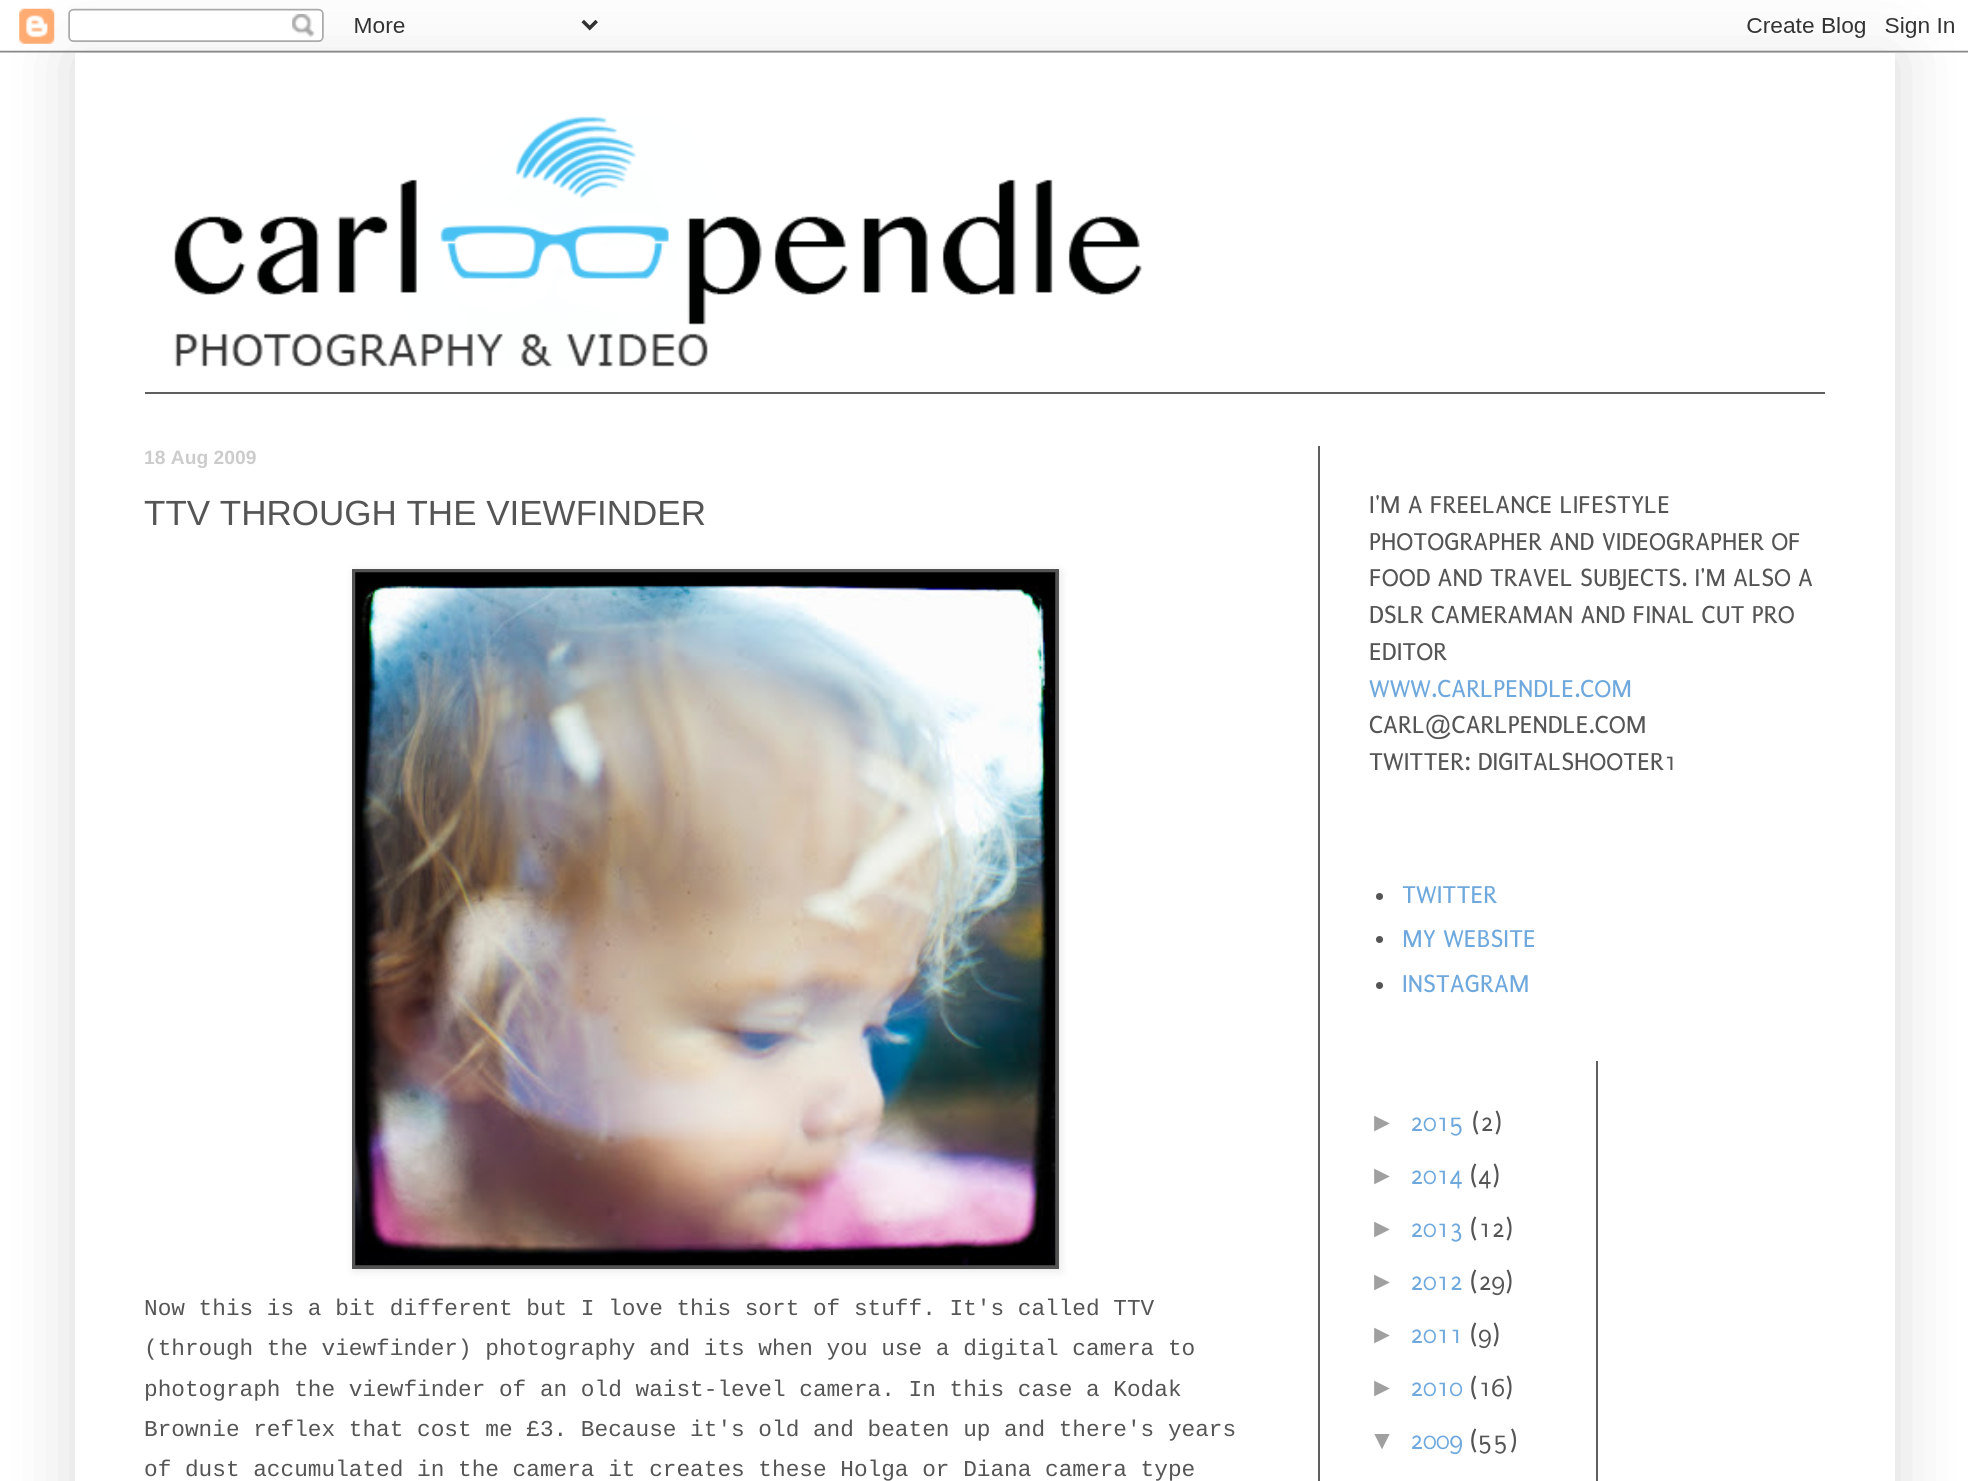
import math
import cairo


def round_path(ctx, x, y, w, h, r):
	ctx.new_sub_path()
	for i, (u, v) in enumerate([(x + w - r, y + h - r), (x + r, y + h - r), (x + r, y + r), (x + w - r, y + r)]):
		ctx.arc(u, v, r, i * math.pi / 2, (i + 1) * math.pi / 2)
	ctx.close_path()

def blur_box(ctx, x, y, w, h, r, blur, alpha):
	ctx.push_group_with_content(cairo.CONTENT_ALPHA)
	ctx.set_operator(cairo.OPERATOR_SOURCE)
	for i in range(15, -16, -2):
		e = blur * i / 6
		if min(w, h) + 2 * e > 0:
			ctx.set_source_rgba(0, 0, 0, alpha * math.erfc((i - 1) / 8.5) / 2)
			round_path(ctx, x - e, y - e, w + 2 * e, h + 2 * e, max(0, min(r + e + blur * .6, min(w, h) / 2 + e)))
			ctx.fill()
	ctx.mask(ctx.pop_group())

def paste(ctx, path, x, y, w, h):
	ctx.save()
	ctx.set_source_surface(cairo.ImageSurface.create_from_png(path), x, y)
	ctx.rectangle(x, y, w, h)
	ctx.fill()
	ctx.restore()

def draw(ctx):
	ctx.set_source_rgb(1, 1, 1)
	ctx.paint()
	ctx.set_source_rgb(0, 0, 0)
	blur_box(ctx, 75, 53, 1820, 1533, 0, 35, 0.15)
	paste(ctx, 'media/1.png', 0, 8, 1968, 45)
	ctx.set_source_rgb(1, 1, 1)
	ctx.rectangle(75, 53, 1820, 1428)
	ctx.fill()
	paste(ctx, 'media/2.png', 174, 116, 968, 251)
	ctx.set_source_rgb(0.369, 0.369, 0.369)
	ctx.rectangle(145, 392, 1680, 2)
	ctx.fill()
	ctx.rectangle(1318, 446, 2, 1035)
	ctx.fill()
	ctx.select_font_face('Liberation Sans', cairo.FONT_SLANT_NORMAL, cairo.FONT_WEIGHT_BOLD)
	ctx.set_font_size(19.25)
	ctx.set_source_rgb(0.8, 0.8, 0.8)
	ctx.move_to(144, 464)
	ctx.show_text('18 Aug 2009')
	ctx.select_font_face('Liberation Sans')
	ctx.set_font_size(35)
	ctx.set_source_rgb(0.333, 0.333, 0.333)
	ctx.move_to(144, 525)
	ctx.show_text('TTV THROUGH THE VIEWFINDER')
	ctx.set_source_rgb(0, 0, 0)
	blur_box(ctx, 354, 571, 707, 700, 0, 4.5, 0.1)
	ctx.set_source_rgb(0.325, 0.325, 0.325)
	ctx.rectangle(352, 569, 707, 700)
	ctx.fill()
	paste(ctx, 'media/3.png', 355, 572, 701, 694)
	ctx.select_font_face('Liberation Mono')
	ctx.set_font_size(22.75)
	ctx.set_source_rgb(0.333, 0.333, 0.333)
	for x, y, s in [
		(144, 1315, 'Now this is a bit different but I love this sort of stuff. It\'s called TTV'),
		(144, 1355, '(through the viewfinder) photography and its when you use a digital camera to'),
		(144, 1396, 'photograph the viewfinder of an old waist-level camera. In this case a Kodak'),
		(144, 1436, 'Brownie reflex that cost me £3. Because it\'s old and beaten up and there\'s years'),
		(144, 1476, 'of dust accumulated in the camera it creates these Holga or Diana camera type'),
	]:
		ctx.move_to(x, y)
		ctx.show_text(s)
	ctx.select_font_face('Puritan')
	ctx.set_font_size(26.25)
	for x, y, s in [
		(1369, 513, 'I\'M A FREELANCE LIFESTYLE'),
		(1369, 550, 'PHOTOGRAPHER AND VIDEOGRAPHER OF'),
		(1369, 586, 'FOOD AND TRAVEL SUBJECTS. I\'M ALSO A'),
		(1369, 623, 'DSLR CAMERAMAN AND FINAL CUT PRO'),
		(1369, 660, 'EDITOR'),
	]:
		ctx.move_to(x, y)
		ctx.show_text(s)
	ctx.set_source_rgb(0.435, 0.659, 0.863)
	ctx.move_to(1369, 697)
	ctx.show_text('WWW.CARLPENDLE.COM')
	ctx.set_source_rgb(0.333, 0.333, 0.333)
	ctx.move_to(1369, 733)
	ctx.show_text('CARL@CARLPENDLE.COM')
	ctx.move_to(1369, 770)
	ctx.show_text('TWITTER: DIGITALSHOOTER1')
	ctx.new_path()
	ctx.arc(1379.5, 896.5, 3.5, 0, 2 * math.pi)
	ctx.fill()
	ctx.set_source_rgb(0.435, 0.659, 0.863)
	ctx.move_to(1402, 903)
	ctx.show_text('TWITTER')
	ctx.set_source_rgb(0.333, 0.333, 0.333)
	ctx.new_path()
	ctx.arc(1379.5, 939.5, 3.5, 0, 2 * math.pi)
	ctx.fill()
	ctx.set_source_rgb(0.435, 0.659, 0.863)
	ctx.move_to(1402, 947)
	ctx.show_text('MY WEBSITE')
	ctx.set_source_rgb(0.333, 0.333, 0.333)
	ctx.new_path()
	ctx.arc(1379.5, 985.5, 3.5, 0, 2 * math.pi)
	ctx.fill()
	ctx.set_source_rgb(0.435, 0.659, 0.863)
	ctx.move_to(1402, 992)
	ctx.show_text('INSTAGRAM')
	ctx.select_font_face('Liberation Sans')
	ctx.set_source_rgb(0.627, 0.627, 0.627)
	ctx.move_to(1369, 1131)
	ctx.show_text('►')
	ctx.select_font_face('Puritan')
	ctx.set_source_rgb(0.435, 0.659, 0.863)
	ctx.move_to(1410, 1131)
	ctx.show_text('2015')
	ctx.set_source_rgb(0.333, 0.333, 0.333)
	ctx.move_to(1472, 1131)
	ctx.show_text('(2)')
	ctx.select_font_face('Liberation Sans')
	ctx.set_source_rgb(0.627, 0.627, 0.627)
	ctx.move_to(1369, 1184)
	ctx.show_text('►')
	ctx.select_font_face('Puritan')
	ctx.set_source_rgb(0.435, 0.659, 0.863)
	ctx.move_to(1410, 1184)
	ctx.show_text('2014')
	ctx.set_source_rgb(0.333, 0.333, 0.333)
	ctx.move_to(1470, 1184)
	ctx.show_text('(4)')
	ctx.select_font_face('Liberation Sans')
	ctx.set_source_rgb(0.627, 0.627, 0.627)
	ctx.move_to(1369, 1237)
	ctx.show_text('►')
	ctx.select_font_face('Puritan')
	ctx.set_source_rgb(0.435, 0.659, 0.863)
	ctx.move_to(1410, 1237)
	ctx.show_text('2013')
	ctx.set_source_rgb(0.333, 0.333, 0.333)
	ctx.move_to(1470, 1237)
	ctx.show_text('(12)')
	ctx.select_font_face('Liberation Sans')
	ctx.set_source_rgb(0.627, 0.627, 0.627)
	ctx.move_to(1369, 1290)
	ctx.show_text('►')
	ctx.select_font_face('Puritan')
	ctx.set_source_rgb(0.435, 0.659, 0.863)
	ctx.move_to(1410, 1290)
	ctx.show_text('2012')
	ctx.set_source_rgb(0.333, 0.333, 0.333)
	ctx.move_to(1470, 1290)
	ctx.show_text('(29)')
	ctx.select_font_face('Liberation Sans')
	ctx.set_source_rgb(0.627, 0.627, 0.627)
	ctx.move_to(1369, 1343)
	ctx.show_text('►')
	ctx.select_font_face('Puritan')
	ctx.set_source_rgb(0.435, 0.659, 0.863)
	ctx.move_to(1410, 1343)
	ctx.show_text('2011')
	ctx.set_source_rgb(0.333, 0.333, 0.333)
	ctx.move_to(1470, 1343)
	ctx.show_text('(9)')
	ctx.select_font_face('Liberation Sans')
	ctx.set_source_rgb(0.627, 0.627, 0.627)
	ctx.move_to(1369, 1396)
	ctx.show_text('►')
	ctx.select_font_face('Puritan')
	ctx.set_source_rgb(0.435, 0.659, 0.863)
	ctx.move_to(1410, 1396)
	ctx.show_text('2010')
	ctx.set_source_rgb(0.333, 0.333, 0.333)
	ctx.move_to(1470, 1396)
	ctx.show_text('(16)')
	ctx.select_font_face('Liberation Sans')
	ctx.set_source_rgb(0.627, 0.627, 0.627)
	ctx.move_to(1369, 1449)
	ctx.show_text('▼')
	ctx.select_font_face('Puritan')
	ctx.set_source_rgb(0.435, 0.659, 0.863)
	ctx.move_to(1410, 1449)
	ctx.show_text('2009')
	ctx.set_source_rgb(0.333, 0.333, 0.333)
	ctx.move_to(1470, 1449)
	ctx.show_text('(55)')
	ctx.set_source_rgb(0.369, 0.369, 0.369)
	ctx.rectangle(1596, 1061, 2, 420)
	ctx.fill()


surface = cairo.ImageSurface(cairo.FORMAT_RGB24, 1968, 1481)
ctx = cairo.Context(surface)
options = cairo.FontOptions()
options.set_hint_metrics(cairo.HINT_METRICS_OFF)
options.set_hint_style(cairo.HINT_STYLE_NONE)
ctx.set_font_options(options)
ctx.set_miter_limit(4)
draw(ctx)
surface.write_to_png('image.png')
